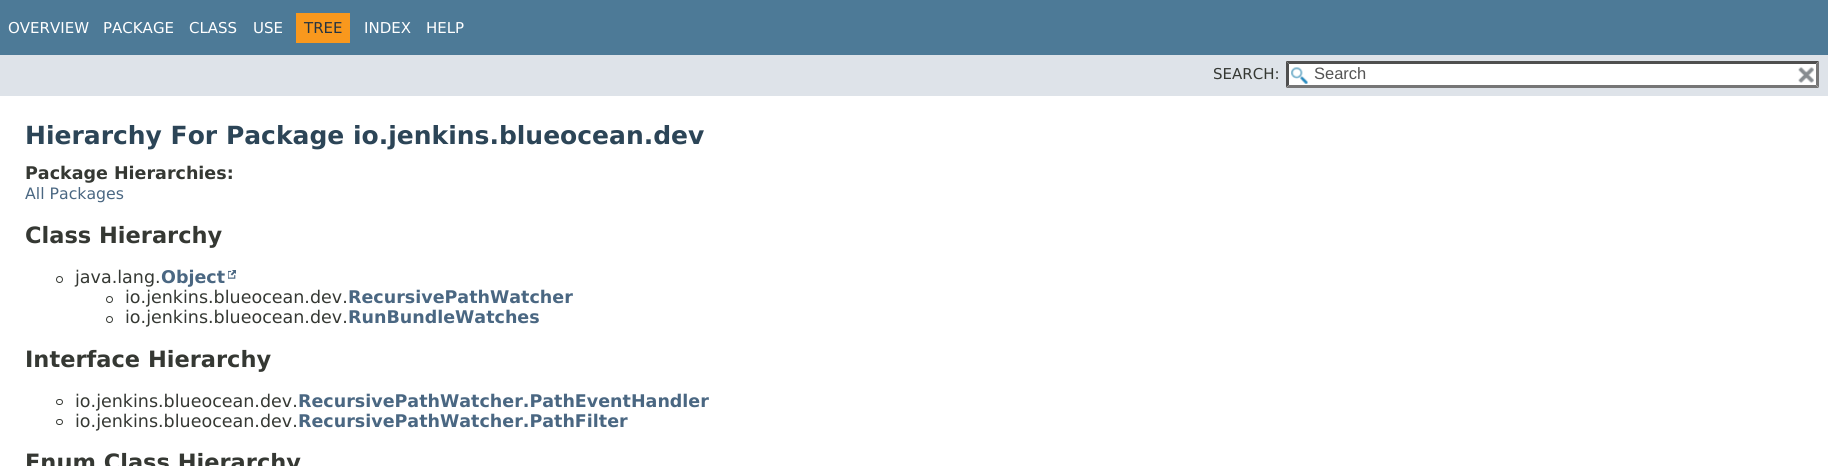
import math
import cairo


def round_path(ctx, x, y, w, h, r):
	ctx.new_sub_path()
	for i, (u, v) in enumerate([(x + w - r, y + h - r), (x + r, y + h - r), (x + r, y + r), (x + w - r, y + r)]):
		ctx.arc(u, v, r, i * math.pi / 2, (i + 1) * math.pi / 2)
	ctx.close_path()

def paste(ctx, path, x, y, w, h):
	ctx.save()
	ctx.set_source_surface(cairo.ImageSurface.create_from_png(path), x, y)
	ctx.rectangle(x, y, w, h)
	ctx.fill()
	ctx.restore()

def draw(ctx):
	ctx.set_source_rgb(1, 1, 1)
	ctx.paint()
	ctx.set_source_rgb(0.302, 0.478, 0.592)
	ctx.rectangle(0, 0, 1828, 55)
	ctx.fill()
	ctx.select_font_face('DejaVu Sans')
	ctx.set_font_size(15)
	ctx.set_source_rgb(1, 1, 1)
	for x, y, s in [
		(8, 33, 'OVERVIEW'),
		(103, 33, 'PACKAGE'),
		(189, 33, 'CLASS'),
		(253, 33, 'USE'),
	]:
		ctx.move_to(x, y)
		ctx.show_text(s)
	ctx.set_source_rgb(0.973, 0.596, 0.114)
	ctx.rectangle(296, 13, 54, 30)
	ctx.fill()
	ctx.set_source_rgb(0.145, 0.204, 0.255)
	ctx.move_to(304, 33)
	ctx.show_text('TREE')
	ctx.set_source_rgb(1, 1, 1)
	ctx.move_to(364, 33)
	ctx.show_text('INDEX')
	ctx.move_to(426, 33)
	ctx.show_text('HELP')
	ctx.set_source_rgb(0.871, 0.89, 0.914)
	ctx.rectangle(0, 55, 1828, 41)
	ctx.fill()
	ctx.set_source_rgb(0.208, 0.22, 0.2)
	ctx.move_to(1213, 79)
	ctx.show_text('SEARCH:')
	ctx.set_source_rgb(1, 1, 1)
	ctx.rectangle(1286, 61, 533, 27)
	ctx.fill()
	paste(ctx, 'media/1.png', 1291, 67, 17, 17)
	ctx.set_source_rgb(0.31, 0.31, 0.31)
	ctx.new_path()
	ctx.move_to(1286, 61)
	ctx.line_to(1819, 61)
	ctx.line_to(1816, 64)
	ctx.line_to(1289, 64)
	ctx.close_path()
	ctx.fill()
	ctx.set_source_rgb(0.463, 0.463, 0.463)
	ctx.new_path()
	ctx.move_to(1819, 61)
	ctx.line_to(1819, 87.5)
	ctx.line_to(1816, 85)
	ctx.line_to(1816, 64)
	ctx.close_path()
	ctx.fill()
	ctx.new_path()
	ctx.move_to(1819, 88)
	ctx.line_to(1286, 88)
	ctx.line_to(1289, 85)
	ctx.line_to(1816, 85)
	ctx.close_path()
	ctx.fill()
	ctx.set_source_rgb(0.31, 0.31, 0.31)
	ctx.new_path()
	ctx.move_to(1286, 87.5)
	ctx.line_to(1286, 61)
	ctx.line_to(1289, 64)
	ctx.line_to(1289, 85)
	ctx.close_path()
	ctx.fill()
	ctx.select_font_face('Liberation Sans')
	ctx.set_font_size(16.5)
	ctx.set_source_rgb(0.329, 0.329, 0.329)
	ctx.move_to(1314, 79)
	ctx.show_text('Search')
	paste(ctx, 'media/2.png', 1798, 67, 16, 16)
	ctx.select_font_face('DejaVu Sans', cairo.FONT_SLANT_NORMAL, cairo.FONT_WEIGHT_BOLD)
	ctx.set_font_size(25)
	ctx.set_source_rgb(0.173, 0.271, 0.341)
	ctx.move_to(25, 144)
	ctx.show_text('Hierarchy For Package io.jenkins.blueocean.dev')
	ctx.set_font_size(17.5)
	ctx.set_source_rgb(0.208, 0.22, 0.2)
	ctx.move_to(25, 179)
	ctx.show_text('Package Hierarchies:')
	ctx.select_font_face('DejaVu Sans')
	ctx.set_font_size(15.75)
	ctx.set_source_rgb(0.29, 0.404, 0.51)
	ctx.move_to(25, 199)
	ctx.show_text('All Packages')
	ctx.select_font_face('DejaVu Sans', cairo.FONT_SLANT_NORMAL, cairo.FONT_WEIGHT_BOLD)
	ctx.set_font_size(22.5)
	ctx.set_source_rgb(0.208, 0.22, 0.2)
	ctx.move_to(25, 243)
	ctx.show_text('Class Hierarchy')
	ctx.new_path()
	ctx.arc(59.5, 279.5, 3, 0, 2 * math.pi)
	ctx.set_line_width(1)
	ctx.stroke()
	ctx.select_font_face('DejaVu Sans')
	ctx.set_font_size(17.5)
	ctx.move_to(75, 283)
	ctx.show_text('java.lang.')
	ctx.select_font_face('DejaVu Sans', cairo.FONT_SLANT_NORMAL, cairo.FONT_WEIGHT_BOLD)
	ctx.set_source_rgb(0.29, 0.404, 0.51)
	ctx.move_to(161, 283)
	ctx.show_text('Object')
	paste(ctx, 'media/3.png', 228, 270, 8, 9)
	ctx.arc(109.5, 299.5, 3, 0, 2 * math.pi)
	ctx.set_source_rgb(0.208, 0.22, 0.2)
	ctx.stroke()
	ctx.select_font_face('DejaVu Sans')
	ctx.move_to(125, 303)
	ctx.show_text('io.jenkins.blueocean.dev.')
	ctx.select_font_face('DejaVu Sans', cairo.FONT_SLANT_NORMAL, cairo.FONT_WEIGHT_BOLD)
	ctx.set_source_rgb(0.29, 0.404, 0.51)
	ctx.move_to(348, 303)
	ctx.show_text('RecursivePathWatcher')
	ctx.new_path()
	ctx.arc(109.5, 319.5, 3, 0, 2 * math.pi)
	ctx.set_source_rgb(0.208, 0.22, 0.2)
	ctx.stroke()
	ctx.select_font_face('DejaVu Sans')
	ctx.move_to(125, 323)
	ctx.show_text('io.jenkins.blueocean.dev.')
	ctx.select_font_face('DejaVu Sans', cairo.FONT_SLANT_NORMAL, cairo.FONT_WEIGHT_BOLD)
	ctx.set_source_rgb(0.29, 0.404, 0.51)
	ctx.move_to(348, 323)
	ctx.show_text('RunBundleWatches')
	ctx.set_font_size(22.5)
	ctx.set_source_rgb(0.208, 0.22, 0.2)
	ctx.move_to(25, 367)
	ctx.show_text('Interface Hierarchy')
	round_path(ctx, 56.5, 399.5, 6, 5, 2.5)
	ctx.stroke()
	ctx.select_font_face('DejaVu Sans')
	ctx.set_font_size(17.5)
	ctx.move_to(75, 407)
	ctx.show_text('io.jenkins.blueocean.dev.')
	ctx.select_font_face('DejaVu Sans', cairo.FONT_SLANT_NORMAL, cairo.FONT_WEIGHT_BOLD)
	ctx.set_source_rgb(0.29, 0.404, 0.51)
	ctx.move_to(298, 407)
	ctx.show_text('RecursivePathWatcher.PathEventHandler')
	round_path(ctx, 56.5, 419.5, 6, 5, 2.5)
	ctx.set_source_rgb(0.208, 0.22, 0.2)
	ctx.stroke()
	ctx.select_font_face('DejaVu Sans')
	ctx.move_to(75, 427)
	ctx.show_text('io.jenkins.blueocean.dev.')
	ctx.select_font_face('DejaVu Sans', cairo.FONT_SLANT_NORMAL, cairo.FONT_WEIGHT_BOLD)
	ctx.set_source_rgb(0.29, 0.404, 0.51)
	ctx.move_to(298, 427)
	ctx.show_text('RecursivePathWatcher.PathFilter')
	ctx.set_font_size(22.5)
	ctx.set_source_rgb(0.208, 0.22, 0.2)
	ctx.move_to(25, 470)
	ctx.show_text('Enum Class Hierarchy')


surface = cairo.ImageSurface(cairo.FORMAT_RGB24, 1828, 466)
ctx = cairo.Context(surface)
options = cairo.FontOptions()
options.set_hint_metrics(cairo.HINT_METRICS_OFF)
options.set_hint_style(cairo.HINT_STYLE_NONE)
ctx.set_font_options(options)
ctx.set_miter_limit(4)
draw(ctx)
surface.write_to_png('image.png')
